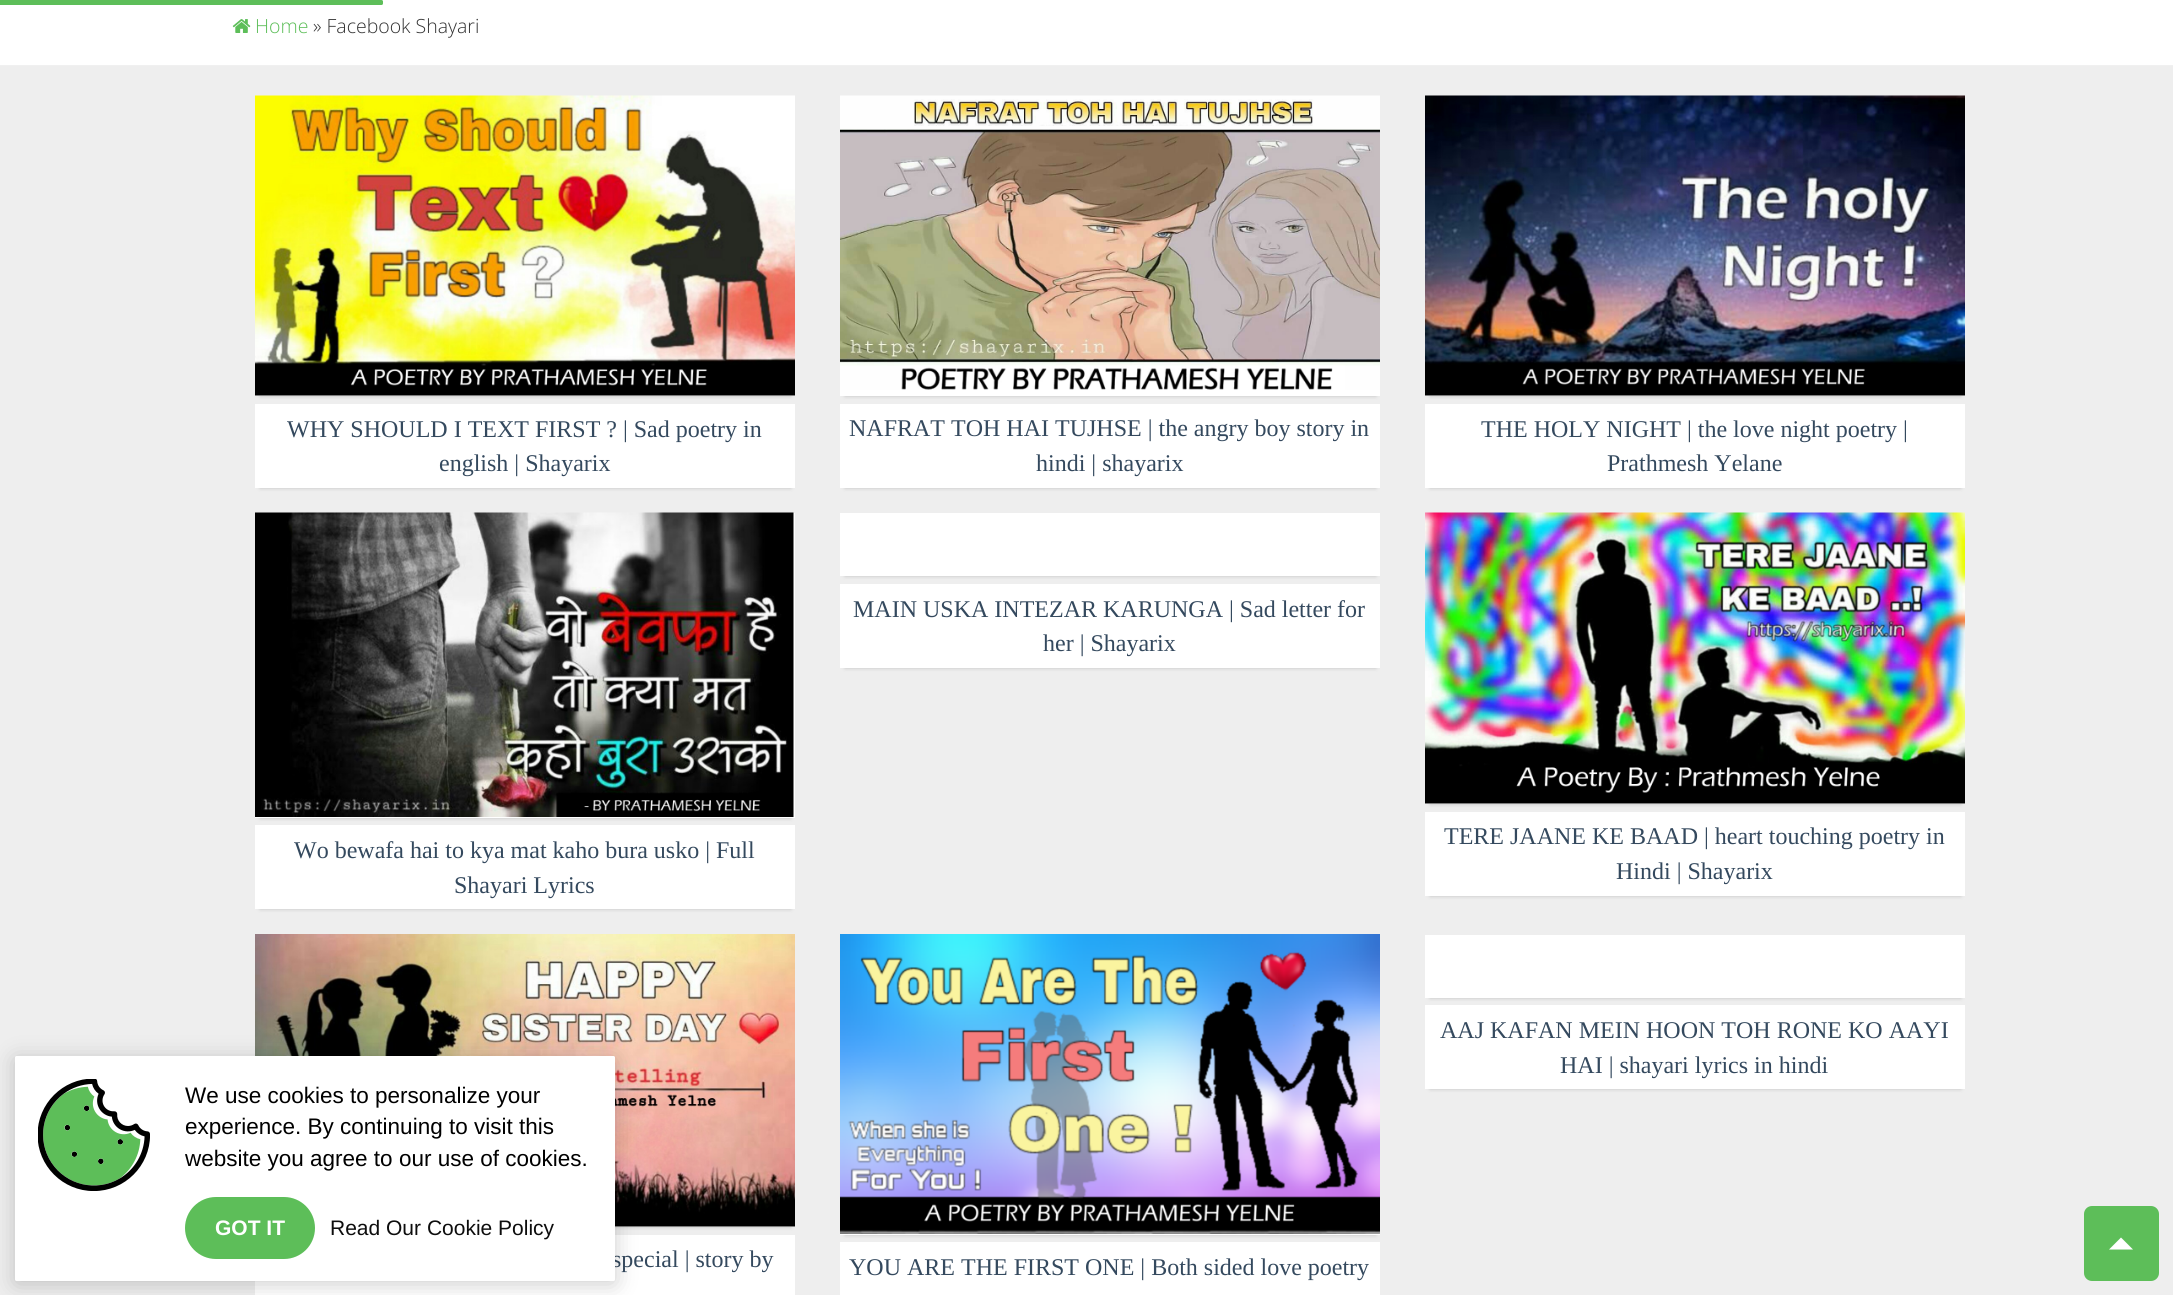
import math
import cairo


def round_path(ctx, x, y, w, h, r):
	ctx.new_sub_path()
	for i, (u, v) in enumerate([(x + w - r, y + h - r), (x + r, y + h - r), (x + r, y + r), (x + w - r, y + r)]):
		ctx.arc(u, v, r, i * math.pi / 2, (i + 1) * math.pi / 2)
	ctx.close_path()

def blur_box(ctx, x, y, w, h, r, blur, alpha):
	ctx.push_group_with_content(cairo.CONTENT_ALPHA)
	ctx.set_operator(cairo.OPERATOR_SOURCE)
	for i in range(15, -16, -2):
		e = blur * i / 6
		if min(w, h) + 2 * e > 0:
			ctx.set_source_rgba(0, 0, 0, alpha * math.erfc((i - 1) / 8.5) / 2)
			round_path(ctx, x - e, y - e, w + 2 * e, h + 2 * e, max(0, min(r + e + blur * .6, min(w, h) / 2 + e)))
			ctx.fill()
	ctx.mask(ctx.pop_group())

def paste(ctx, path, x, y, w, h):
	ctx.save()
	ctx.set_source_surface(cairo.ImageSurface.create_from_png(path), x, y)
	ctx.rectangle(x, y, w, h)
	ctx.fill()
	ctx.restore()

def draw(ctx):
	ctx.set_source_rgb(1, 1, 1)
	ctx.paint()
	ctx.set_source_rgb(0.365, 0.745, 0.349)
	round_path(ctx, -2, 0, 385, 5, 1.5)
	ctx.fill()
	ctx.set_source_rgb(0.941, 0.941, 0.941)
	ctx.rectangle(0, 65, 2173, 1)
	ctx.fill()
	paste(ctx, 'media/1.png', 232, 19, 19, 14)
	ctx.select_font_face('Open Sans Light')
	ctx.set_font_size(19.5)
	ctx.set_source_rgb(0.365, 0.745, 0.349)
	ctx.move_to(255, 33)
	ctx.show_text('Home')
	ctx.set_source_rgb(0.2, 0.2, 0.2)
	ctx.move_to(313, 33)
	ctx.show_text('» Facebook Shayari')
	ctx.set_source_rgb(0.933, 0.933, 0.933)
	ctx.rectangle(0, 66, 2173, 1229)
	ctx.fill()
	ctx.set_source_rgb(0, 0, 0)
	blur_box(ctx, 260, 105, 531, 291, 0, 2, 0.2)
	ctx.set_source_rgb(1, 1, 1)
	ctx.rectangle(255, 395, 540, 1)
	ctx.fill()
	paste(ctx, 'media/2.png', 255, 95, 540, 301)
	ctx.set_source_rgb(0, 0, 0)
	blur_box(ctx, 260, 413, 531, 75, 0, 2, 0.2)
	ctx.set_source_rgb(1, 1, 1)
	ctx.rectangle(255, 404, 540, 84)
	ctx.fill()
	ctx.select_font_face('Liberation Serif')
	ctx.set_font_size(24)
	ctx.set_source_rgb(0.204, 0.286, 0.369)
	ctx.move_to(287, 437)
	ctx.show_text('WHY SHOULD I TEXT FIRST ? | Sad poetry in')
	ctx.move_to(439, 471)
	ctx.show_text('english | Shayarix')
	ctx.set_source_rgb(0, 0, 0)
	blur_box(ctx, 845, 105, 531, 291, 0, 2, 0.2)
	ctx.set_source_rgb(1, 1, 1)
	ctx.rectangle(840, 390, 540, 6)
	ctx.fill()
	paste(ctx, 'media/3.png', 840, 95, 540, 295)
	ctx.set_source_rgb(0, 0, 0)
	blur_box(ctx, 845, 413, 531, 75, 0, 2, 0.2)
	ctx.set_source_rgb(1, 1, 1)
	ctx.rectangle(840, 404, 540, 84)
	ctx.fill()
	ctx.set_source_rgb(0.204, 0.286, 0.369)
	ctx.move_to(849, 436)
	ctx.show_text('NAFRAT TOH HAI TUJHSE | the angry boy story in')
	ctx.move_to(1036, 471)
	ctx.show_text('hindi | shayarix')
	ctx.set_source_rgb(0, 0, 0)
	blur_box(ctx, 1430, 105, 531, 291, 0, 2, 0.2)
	ctx.set_source_rgb(1, 1, 1)
	ctx.rectangle(1425, 395, 540, 1)
	ctx.fill()
	paste(ctx, 'media/4.png', 1425, 95, 540, 301)
	ctx.set_source_rgb(0, 0, 0)
	blur_box(ctx, 1430, 413, 531, 75, 0, 2, 0.2)
	ctx.set_source_rgb(1, 1, 1)
	ctx.rectangle(1425, 404, 540, 84)
	ctx.fill()
	ctx.set_source_rgb(0.204, 0.286, 0.369)
	ctx.move_to(1481, 437)
	ctx.show_text('THE HOLY NIGHT | the love night poetry |')
	ctx.move_to(1607, 471)
	ctx.show_text('Prathmesh Yelane')
	ctx.set_source_rgb(0, 0, 0)
	blur_box(ctx, 845, 522, 531, 54, 0, 2, 0.2)
	ctx.set_source_rgb(1, 1, 1)
	ctx.rectangle(840, 513, 540, 63)
	ctx.fill()
	ctx.set_source_rgb(0, 0, 0)
	blur_box(ctx, 845, 593, 531, 75, 0, 2, 0.2)
	ctx.set_source_rgb(1, 1, 1)
	ctx.rectangle(840, 584, 540, 84)
	ctx.fill()
	ctx.set_source_rgb(0.204, 0.286, 0.369)
	ctx.move_to(853, 617)
	ctx.show_text('MAIN USKA INTEZAR KARUNGA | Sad letter for')
	ctx.move_to(1043, 651)
	ctx.show_text('her | Shayarix')
	ctx.set_source_rgb(0, 0, 0)
	blur_box(ctx, 260, 522, 531, 296, 0, 2, 0.2)
	ctx.set_source_rgb(1, 1, 1)
	ctx.rectangle(255, 513, 540, 305)
	ctx.fill()
	paste(ctx, 'media/5.png', 255, 512, 539, 305)
	ctx.set_source_rgb(0, 0, 0)
	blur_box(ctx, 260, 834, 531, 75, 0, 2, 0.2)
	ctx.set_source_rgb(1, 1, 1)
	ctx.rectangle(255, 825, 540, 84)
	ctx.fill()
	ctx.set_source_rgb(0.204, 0.286, 0.369)
	ctx.move_to(294, 858)
	ctx.show_text('Wo bewafa hai to kya mat kaho bura usko | Full')
	ctx.move_to(454, 893)
	ctx.show_text('Shayari Lyrics')
	ctx.set_source_rgb(0, 0, 0)
	blur_box(ctx, 1430, 522, 531, 282, 0, 2, 0.2)
	ctx.set_source_rgb(1, 1, 1)
	ctx.rectangle(1425, 803, 540, 1)
	ctx.fill()
	paste(ctx, 'media/6.png', 1425, 512, 540, 292)
	ctx.set_source_rgb(0, 0, 0)
	blur_box(ctx, 1430, 821, 531, 75, 0, 2, 0.2)
	ctx.set_source_rgb(1, 1, 1)
	ctx.rectangle(1425, 812, 540, 84)
	ctx.fill()
	ctx.set_source_rgb(0.204, 0.286, 0.369)
	ctx.move_to(1444, 844)
	ctx.show_text('TERE JAANE KE BAAD | heart touching poetry in')
	ctx.move_to(1616, 879)
	ctx.show_text('Hindi | Shayarix')
	ctx.set_source_rgb(0, 0, 0)
	blur_box(ctx, 1430, 944, 531, 54, 0, 2, 0.2)
	ctx.set_source_rgb(1, 1, 1)
	ctx.rectangle(1425, 935, 540, 63)
	ctx.fill()
	ctx.set_source_rgb(0, 0, 0)
	blur_box(ctx, 1430, 1014, 531, 75, 0, 2, 0.2)
	ctx.set_source_rgb(1, 1, 1)
	ctx.rectangle(1425, 1005, 540, 84)
	ctx.fill()
	ctx.set_source_rgb(0.204, 0.286, 0.369)
	ctx.move_to(1440, 1038)
	ctx.show_text('AAJ KAFAN MEIN HOON TOH RONE KO AAYI')
	ctx.move_to(1560, 1073)
	ctx.show_text('HAI | shayari lyrics in hindi')
	ctx.set_source_rgb(0, 0, 0)
	blur_box(ctx, 260, 944, 531, 283, 0, 2, 0.2)
	ctx.set_source_rgb(1, 1, 1)
	ctx.rectangle(615, 1226, 180, 1)
	ctx.fill()
	paste(ctx, 'media/7.png', 255, 934, 540, 293)
	ctx.rectangle(255, 1235, 540, 60)
	ctx.fill()
	ctx.set_source_rgb(0.204, 0.286, 0.369)
	ctx.move_to(612, 1267)
	ctx.show_text('special | story by')
	ctx.set_source_rgb(0, 0, 0)
	blur_box(ctx, 845, 944, 531, 291, 0, 2, 0.2)
	ctx.set_source_rgb(1, 1, 1)
	ctx.rectangle(840, 1148, 540, 87)
	ctx.fill()
	paste(ctx, 'media/8.png', 840, 934, 540, 300)
	ctx.rectangle(840, 1242, 540, 53)
	ctx.fill()
	ctx.set_source_rgb(0.204, 0.286, 0.369)
	ctx.move_to(849, 1275)
	ctx.show_text('YOU ARE THE FIRST ONE | Both sided love poetry')
	ctx.set_source_rgb(0, 0, 0)
	blur_box(ctx, 15, 1059, 600, 225, 1.5, 11, 0.2)
	ctx.set_source_rgb(1, 1, 1)
	round_path(ctx, 15, 1056, 600, 225, 1.5)
	ctx.fill()
	paste(ctx, 'media/9.png', 38, 1079, 112, 112)
	ctx.select_font_face('Liberation Sans')
	ctx.set_font_size(22.5)
	ctx.set_source_rgb(0, 0, 0)
	for x, y, s in [
		(185, 1103, 'We use cookies to personalize your'),
		(185, 1134, 'experience. By continuing to visit this'),
		(185, 1166, 'website you agree to our use of cookies.'),
	]:
		ctx.move_to(x, y)
		ctx.show_text(s)
	ctx.set_source_rgb(0.365, 0.745, 0.349)
	round_path(ctx, 185, 1197, 130, 62, 31)
	ctx.fill()
	ctx.select_font_face('Liberation Sans', cairo.FONT_SLANT_NORMAL, cairo.FONT_WEIGHT_BOLD)
	ctx.set_font_size(21)
	ctx.set_source_rgb(1, 1, 1)
	ctx.move_to(215, 1235)
	ctx.show_text('GOT IT')
	ctx.select_font_face('Liberation Sans')
	ctx.set_source_rgb(0.051, 0.051, 0.051)
	ctx.move_to(330, 1235)
	ctx.show_text('Read Our Cookie Policy')
	ctx.set_source_rgb(0.365, 0.745, 0.349)
	round_path(ctx, 2084, 1206, 75, 75, 8)
	ctx.fill()
	ctx.set_source_rgb(1, 1, 1)
	ctx.new_path()
	ctx.move_to(2133, 1249.5)
	ctx.line_to(2109, 1249.5)
	ctx.line_to(2121, 1237.5)
	ctx.close_path()
	ctx.fill()


surface = cairo.ImageSurface(cairo.FORMAT_RGB24, 2173, 1295)
ctx = cairo.Context(surface)
options = cairo.FontOptions()
options.set_hint_metrics(cairo.HINT_METRICS_OFF)
options.set_hint_style(cairo.HINT_STYLE_NONE)
ctx.set_font_options(options)
ctx.set_miter_limit(4)
draw(ctx)
surface.write_to_png('image.png')
